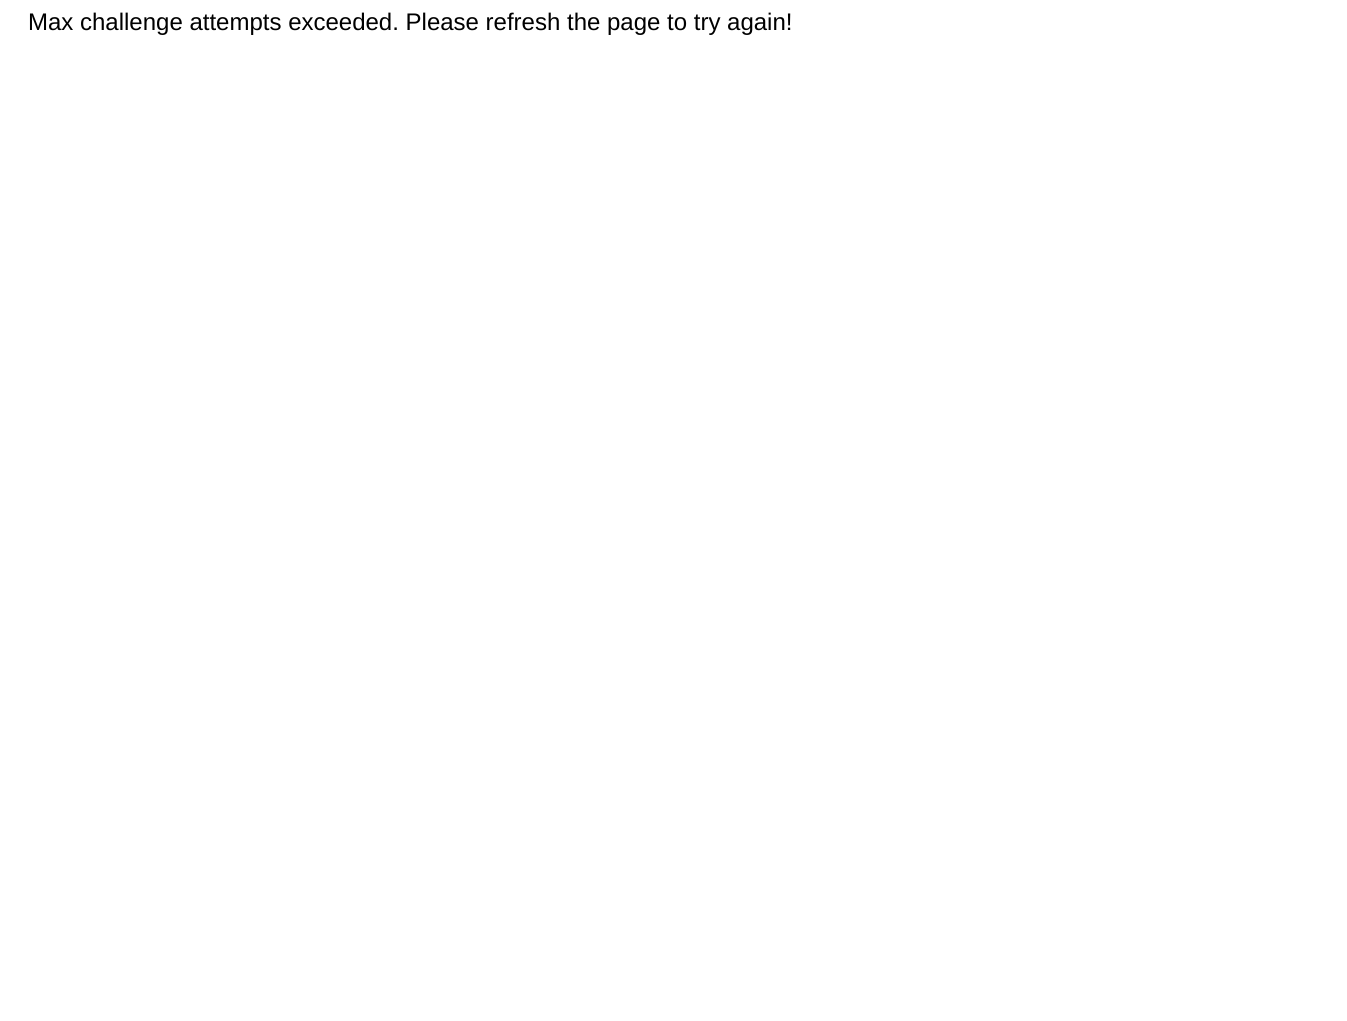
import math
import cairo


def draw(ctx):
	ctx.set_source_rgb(1, 1, 1)
	ctx.paint()
	ctx.select_font_face('Liberation Sans')
	ctx.set_font_size(24)
	ctx.set_source_rgb(0, 0, 0)
	ctx.move_to(28, 30)
	ctx.show_text('Max challenge attempts exceeded. Please refresh the page to try again!')


surface = cairo.ImageSurface(cairo.FORMAT_RGB24, 1347, 1021)
ctx = cairo.Context(surface)
options = cairo.FontOptions()
options.set_hint_metrics(cairo.HINT_METRICS_OFF)
options.set_hint_style(cairo.HINT_STYLE_NONE)
ctx.set_font_options(options)
ctx.set_miter_limit(4)
draw(ctx)
surface.write_to_png('image.png')
